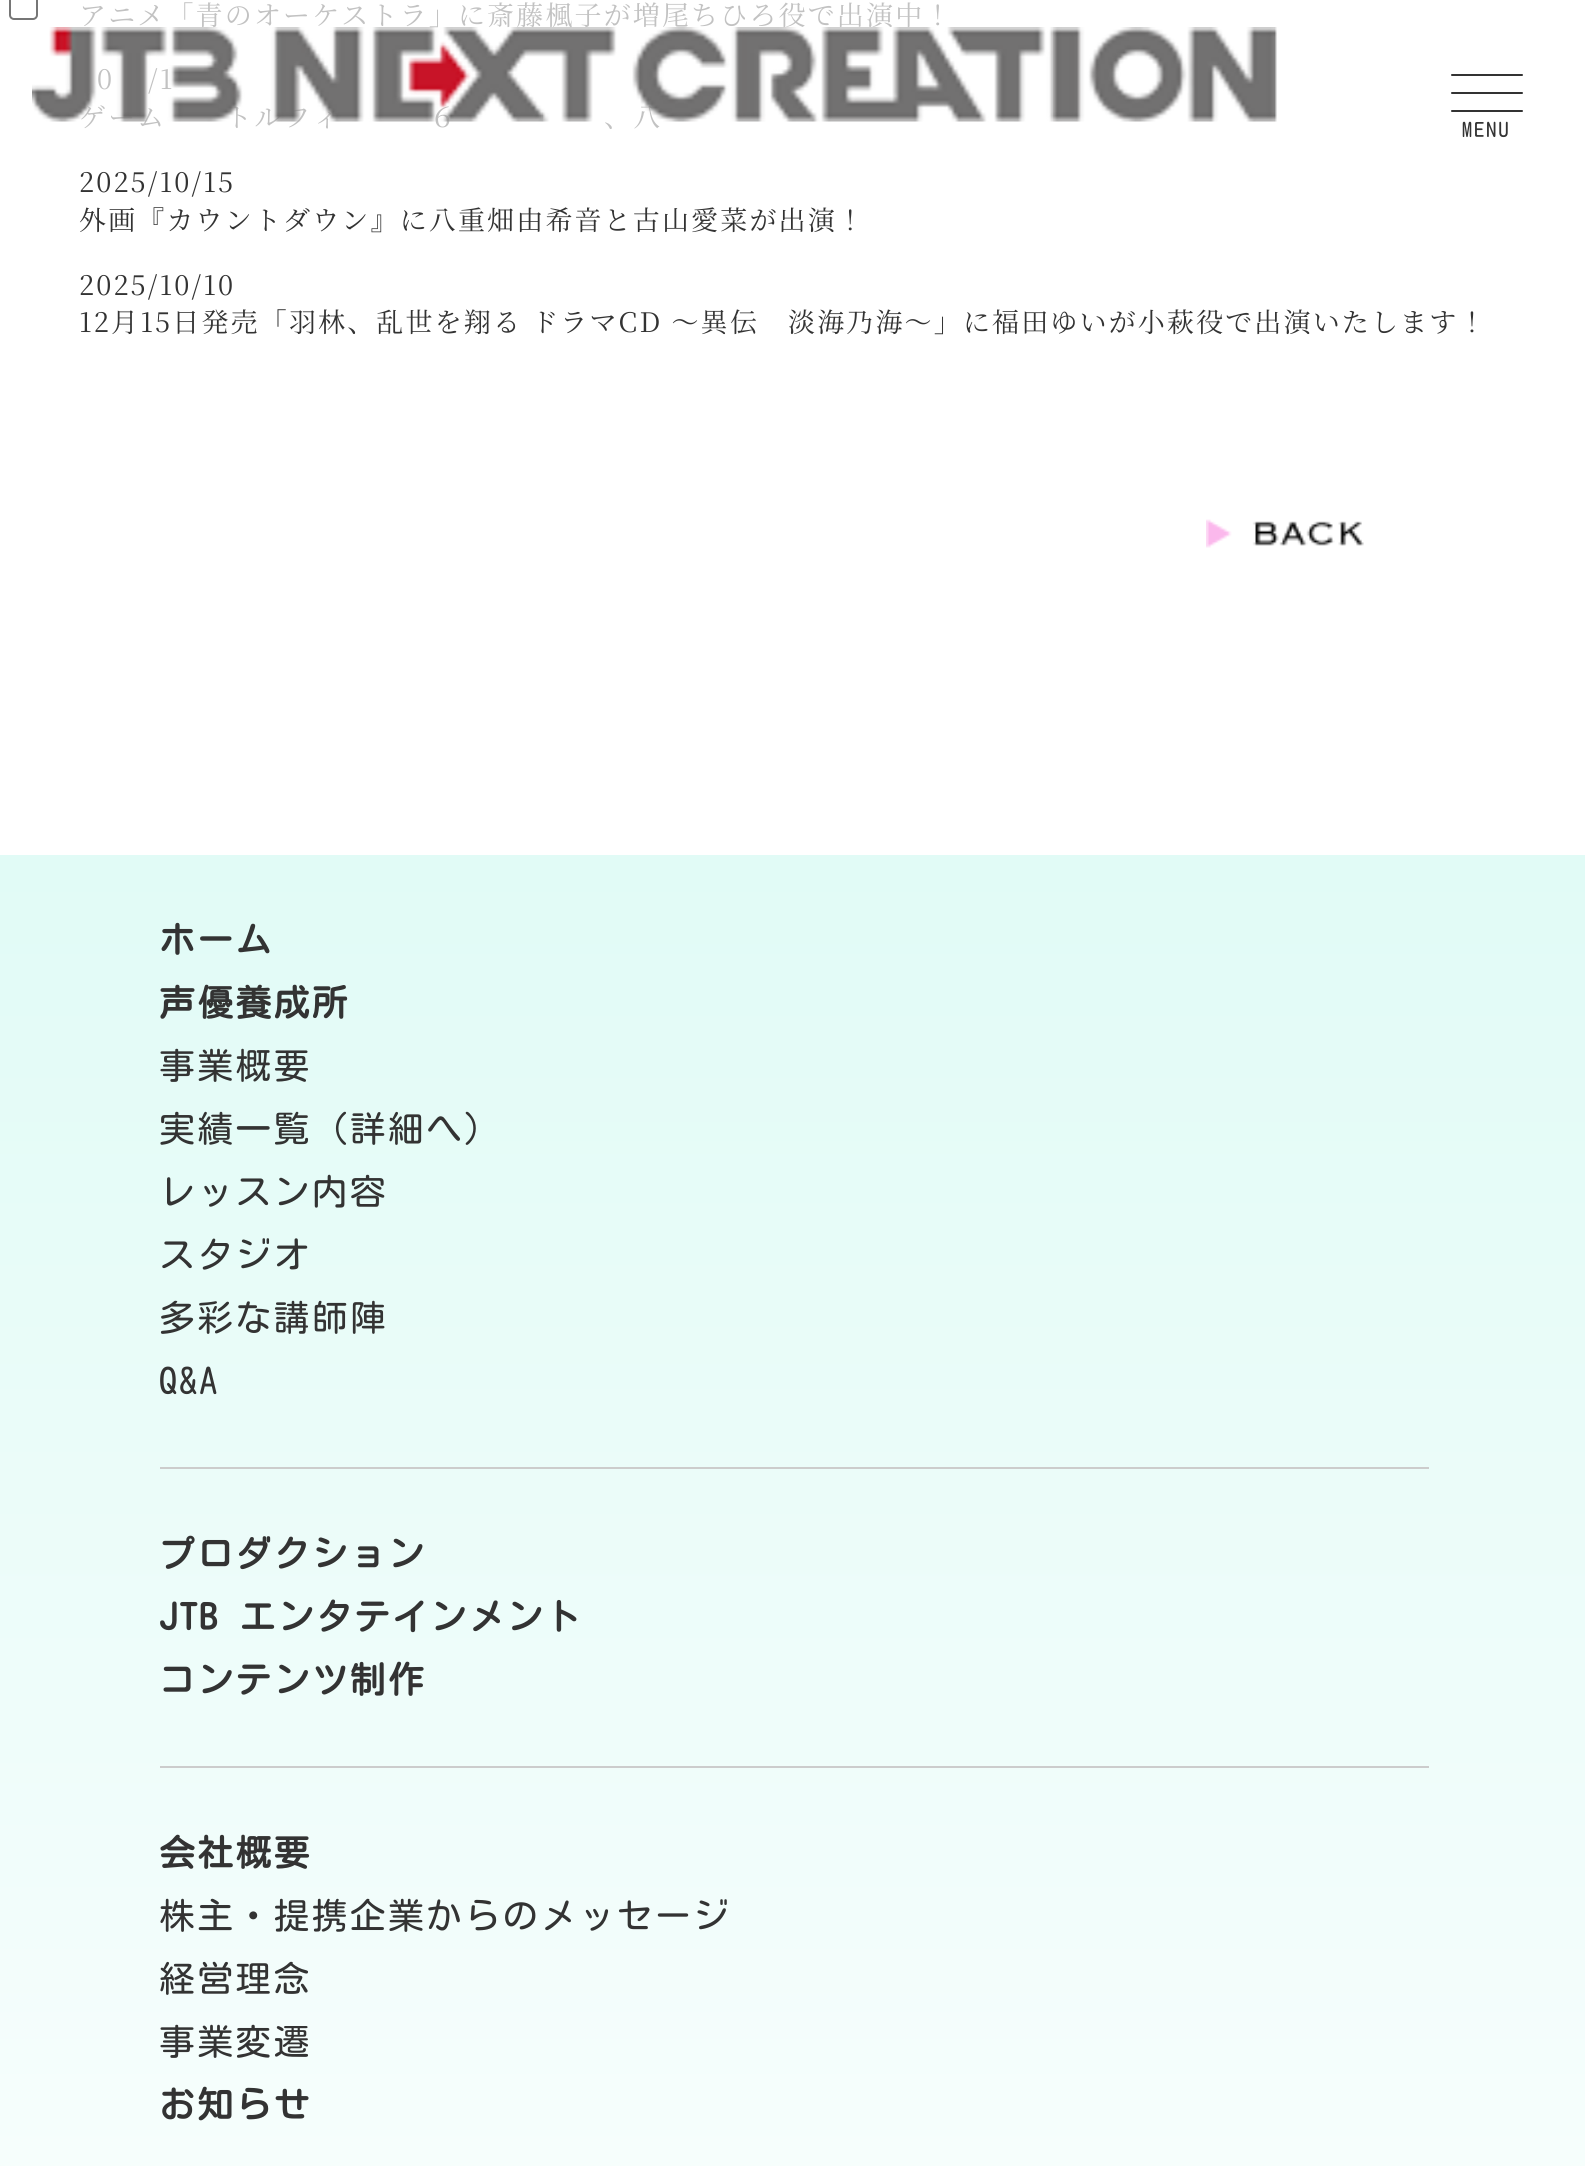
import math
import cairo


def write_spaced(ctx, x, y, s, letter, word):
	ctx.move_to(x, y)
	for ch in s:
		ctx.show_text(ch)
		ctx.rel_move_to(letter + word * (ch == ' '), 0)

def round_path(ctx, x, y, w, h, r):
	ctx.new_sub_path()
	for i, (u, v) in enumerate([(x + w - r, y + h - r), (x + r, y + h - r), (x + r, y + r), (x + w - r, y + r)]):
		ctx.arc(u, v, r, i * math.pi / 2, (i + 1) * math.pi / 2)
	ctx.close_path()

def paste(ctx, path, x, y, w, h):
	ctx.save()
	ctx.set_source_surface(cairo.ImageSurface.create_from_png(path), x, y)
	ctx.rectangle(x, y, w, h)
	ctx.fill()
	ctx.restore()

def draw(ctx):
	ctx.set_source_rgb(1, 1, 1)
	ctx.paint()
	ctx.select_font_face('Noto Serif JP')
	ctx.set_font_size(27)
	ctx.set_source_rgb(0.761, 0.761, 0.761)
	for x, y, s in [
		(79, 25, 'アニメ「青のオーケストラ」に斎藤楓子が増尾ちひろ役で出演中！'),
		(97, 89, '0'),
		(148, 89, '/1'),
		(79, 127, 'ゲーム'),
		(225, 127, 'トルフィ'),
		(429, 127, '６'),
		(604, 127, '、八'),
	]:
		write_spaced(ctx, x, y, s, 2.15, 0)
	ctx.set_source_rgb(0.2, 0.2, 0.2)
	for x, y, s in [
		(79, 192, '2025/10/15'),
		(79, 230, '外画『カウントダウン』に八重畑由希音と古山愛菜が出演！'),
		(79, 295, '2025/10/10'),
		(79, 332, '12月15日発売「羽林、乱世を翔る ドラマCD ～異伝　淡海乃海～」に福田ゆいが小萩役で出演いたします！'),
	]:
		write_spaced(ctx, x, y, s, 2.15, 0)
	paste(ctx, 'media/1.png', 1206, 519, 158, 29)
	paste(ctx, 'media/2.png', 32, 27, 1245, 95)
	round_path(ctx, 10, -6, 27, 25, 4)
	ctx.set_source_rgb(0.463, 0.463, 0.463)
	ctx.stroke()
	ctx.set_source_rgb(0.2, 0.2, 0.2)
	round_path(ctx, 1451, 92, 72, 2, 1)
	ctx.fill()
	round_path(ctx, 1451, 74, 72, 2, 1)
	ctx.fill()
	round_path(ctx, 1451, 110, 72, 2, 1)
	ctx.fill()
	ctx.select_font_face('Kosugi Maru')
	ctx.set_font_size(20)
	write_spaced(ctx, 1462, 137, 'MENU', 2.15, 0)
	gradient = cairo.LinearGradient(793, 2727, 793, 855)
	gradient.add_color_stop_rgba(0, 1, 1, 1, 1)
	gradient.add_color_stop_rgba(1, 0.882, 0.984, 0.965, 1)
	ctx.set_source(gradient)
	ctx.rectangle(0, 855, 1585, 1311)
	ctx.fill()
	ctx.set_source_rgb(0.8, 0.8, 0.8)
	ctx.rectangle(160, 1467, 1269, 2)
	ctx.fill()
	ctx.select_font_face('Kosugi Maru', cairo.FONT_SLANT_NORMAL, cairo.FONT_WEIGHT_BOLD)
	ctx.set_font_size(36)
	ctx.set_source_rgb(0.2, 0.2, 0.2)
	write_spaced(ctx, 159, 953, 'ホーム', 2.15, 0)
	write_spaced(ctx, 159, 1016, '声優養成所', 2.15, 0)
	ctx.select_font_face('Kosugi Maru')
	for x, y, s in [
		(159, 1079, '事業概要'),
		(159, 1142, '実績一覧（詳細へ）'),
		(159, 1205, 'レッスン内容'),
		(159, 1268, 'スタジオ'),
		(159, 1331, '多彩な講師陣'),
		(159, 1394, 'Q&A'),
	]:
		write_spaced(ctx, x, y, s, 2.15, 0)
	ctx.set_source_rgb(0.8, 0.8, 0.8)
	ctx.rectangle(160, 1766, 1269, 2)
	ctx.fill()
	ctx.select_font_face('Kosugi Maru', cairo.FONT_SLANT_NORMAL, cairo.FONT_WEIGHT_BOLD)
	ctx.set_source_rgb(0.2, 0.2, 0.2)
	for x, y, s in [
		(159, 1567, 'プロダクション'),
		(159, 1630, 'JTB エンタテインメント'),
		(159, 1693, 'コンテンツ制作'),
		(159, 1866, '会社概要'),
	]:
		write_spaced(ctx, x, y, s, 2.15, 0)
	ctx.select_font_face('Kosugi Maru')
	for x, y, s in [
		(159, 1929, '株主・提携企業からのメッセージ'),
		(159, 1992, '経営理念'),
		(159, 2055, '事業変遷'),
	]:
		write_spaced(ctx, x, y, s, 2.15, 0)
	ctx.select_font_face('Kosugi Maru', cairo.FONT_SLANT_NORMAL, cairo.FONT_WEIGHT_BOLD)
	write_spaced(ctx, 159, 2118, 'お知らせ', 2.15, 0)


surface = cairo.ImageSurface(cairo.FORMAT_RGB24, 1585, 2166)
ctx = cairo.Context(surface)
options = cairo.FontOptions()
options.set_hint_metrics(cairo.HINT_METRICS_OFF)
options.set_hint_style(cairo.HINT_STYLE_NONE)
ctx.set_font_options(options)
ctx.set_miter_limit(4)
draw(ctx)
surface.write_to_png('image.png')
